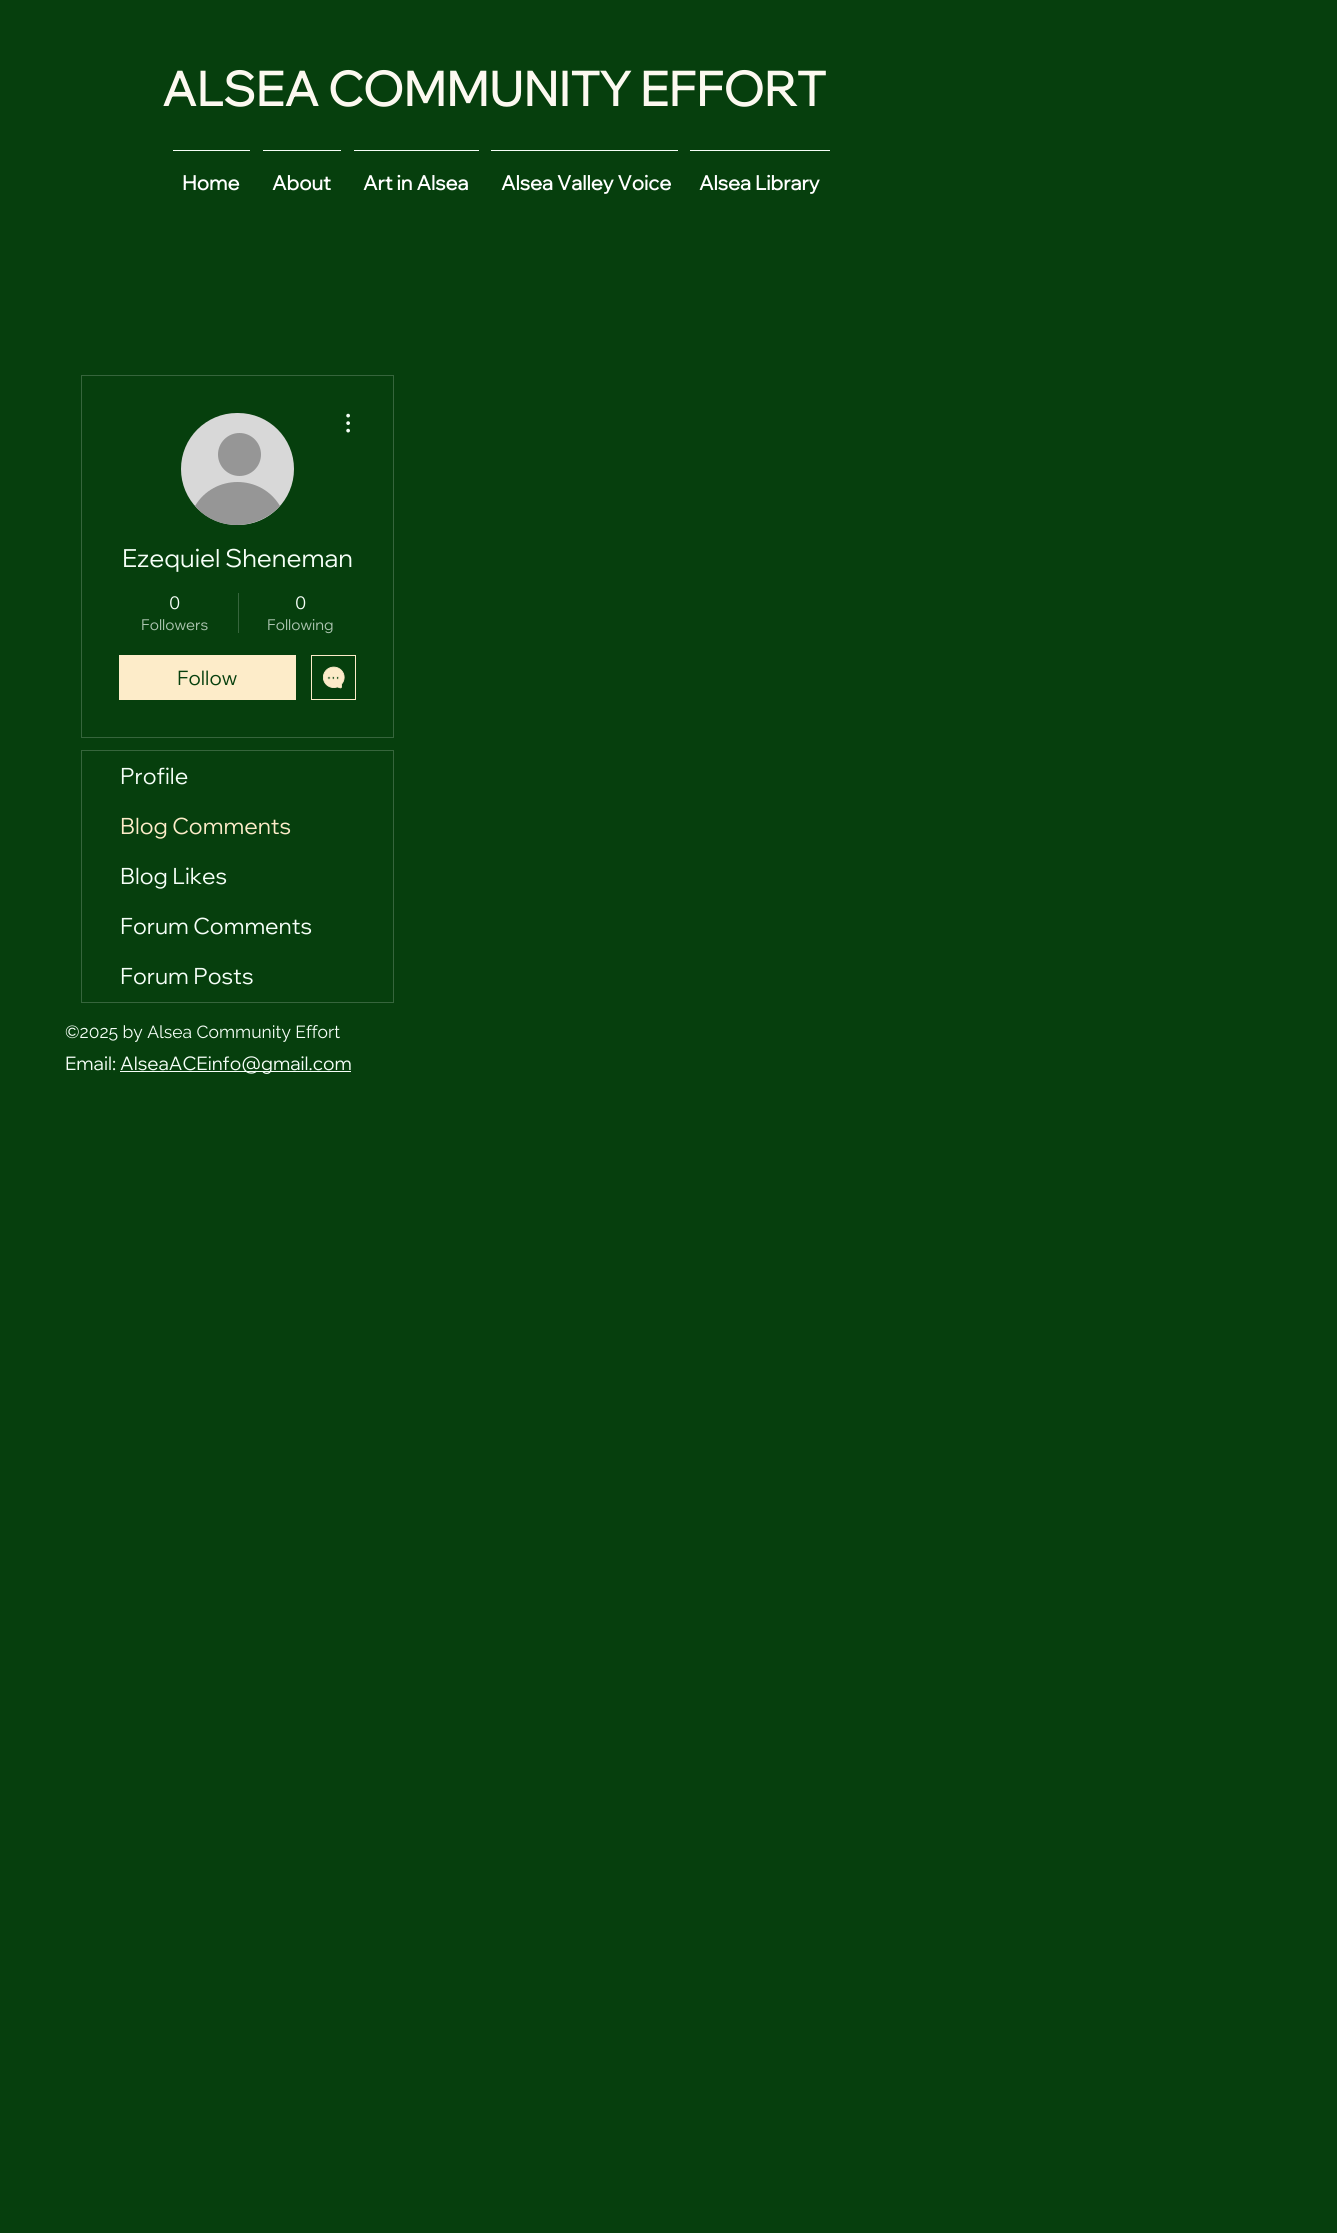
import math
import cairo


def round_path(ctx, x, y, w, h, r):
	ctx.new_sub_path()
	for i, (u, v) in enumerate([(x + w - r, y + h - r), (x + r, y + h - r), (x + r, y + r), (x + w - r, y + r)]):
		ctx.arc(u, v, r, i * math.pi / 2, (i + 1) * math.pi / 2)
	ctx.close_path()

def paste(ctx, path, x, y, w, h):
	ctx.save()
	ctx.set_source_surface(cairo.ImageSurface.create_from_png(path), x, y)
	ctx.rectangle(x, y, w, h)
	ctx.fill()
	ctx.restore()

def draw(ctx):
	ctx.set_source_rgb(0.024, 0.247, 0.051)
	ctx.paint()
	ctx.select_font_face('Wix Madefor Display', cairo.FONT_SLANT_NORMAL, cairo.FONT_WEIGHT_BOLD)
	ctx.set_font_size(47.5)
	ctx.set_source_rgb(0.988, 0.973, 0.941)
	ctx.move_to(162, 106)
	ctx.show_text('ALSEA COMMUNITY EFFORT')
	ctx.set_source_rgb(0.961, 1, 0.969)
	ctx.rectangle(173, 150, 77, 1)
	ctx.fill()
	ctx.set_font_size(20)
	ctx.set_source_rgb(1, 1, 1)
	ctx.move_to(182, 190)
	ctx.show_text('Home')
	ctx.set_source_rgb(0.961, 1, 0.969)
	ctx.rectangle(263, 150, 78, 1)
	ctx.fill()
	ctx.set_source_rgb(1, 1, 1)
	ctx.move_to(272, 190)
	ctx.show_text('About')
	ctx.set_source_rgb(0.961, 1, 0.969)
	ctx.rectangle(354, 150, 125, 1)
	ctx.fill()
	ctx.set_source_rgb(1, 1, 1)
	ctx.move_to(363, 190)
	ctx.show_text('Art in Alsea')
	ctx.set_source_rgb(0.961, 1, 0.969)
	ctx.rectangle(491, 150, 187, 1)
	ctx.fill()
	ctx.set_source_rgb(1, 1, 1)
	ctx.move_to(501, 190)
	ctx.show_text('Alsea Valley Voice')
	ctx.set_source_rgb(0.961, 1, 0.969)
	ctx.rectangle(690, 150, 140, 1)
	ctx.fill()
	ctx.set_source_rgb(1, 1, 1)
	ctx.move_to(699, 190)
	ctx.show_text('Alsea Library')
	ctx.rectangle(81.5, 375.5, 312, 362)
	ctx.set_source_rgb(0.212, 0.396, 0.235)
	ctx.set_line_width(1)
	ctx.stroke()
	ctx.set_source_rgb(0.847, 0.847, 0.847)
	round_path(ctx, 181, 413, 113, 112, 56)
	ctx.fill()
	ctx.set_source_rgb(0.588, 0.588, 0.588)
	ctx.arc(239.5, 454.5, 21.5, 0, 2 * math.pi)
	ctx.fill()
	ctx.new_path()
	ctx.move_to(237, 525)
	ctx.curve_to(253, 525, 269, 518, 280, 506)
	ctx.curve_to(261, 474, 214, 474, 195, 506)
	ctx.curve_to(205, 518, 220, 525, 237, 525)
	ctx.close_path()
	ctx.fill()
	paste(ctx, 'media/1.png', 346, 413, 4, 20)
	ctx.select_font_face('Wix Madefor Display')
	ctx.set_font_size(25)
	ctx.set_source_rgb(0.961, 1, 0.969)
	ctx.move_to(122, 567)
	ctx.show_text('Ezequiel Sheneman')
	ctx.set_font_size(17.5)
	ctx.move_to(169, 609)
	ctx.show_text('0')
	ctx.set_font_size(15)
	ctx.set_source_rgb(0.678, 0.773, 0.694)
	ctx.move_to(141, 630)
	ctx.show_text('Followers')
	ctx.set_source_rgb(0.212, 0.396, 0.235)
	ctx.rectangle(238, 593, 1, 40)
	ctx.fill()
	ctx.set_font_size(17.5)
	ctx.set_source_rgb(0.961, 1, 0.969)
	ctx.move_to(295, 609)
	ctx.show_text('0')
	ctx.set_font_size(15)
	ctx.set_source_rgb(0.678, 0.773, 0.694)
	ctx.move_to(267, 630)
	ctx.show_text('Following')
	ctx.set_source_rgb(0.992, 0.922, 0.788)
	ctx.rectangle(119, 655, 177, 45)
	ctx.fill()
	ctx.set_font_size(20)
	ctx.set_source_rgb(0.024, 0.247, 0.051)
	ctx.move_to(177, 685)
	ctx.show_text('Follow')
	ctx.rectangle(311.5, 655.5, 44, 44)
	ctx.set_source_rgb(0.992, 0.922, 0.788)
	ctx.stroke()
	paste(ctx, 'media/2.png', 323, 666, 22, 23)
	ctx.rectangle(81.5, 750.5, 312, 252)
	ctx.set_source_rgb(0.212, 0.396, 0.235)
	ctx.stroke()
	ctx.set_font_size(22.5)
	ctx.set_source_rgb(0.961, 1, 0.969)
	ctx.move_to(120, 784)
	ctx.show_text('Profile')
	ctx.set_source_rgb(0.992, 0.922, 0.788)
	ctx.move_to(120, 834)
	ctx.show_text('Blog Comments')
	ctx.set_source_rgb(0.961, 1, 0.969)
	for x, y, s in [
		(120, 884, 'Blog Likes'),
		(120, 934, 'Forum Comments'),
		(120, 984, 'Forum Posts'),
	]:
		ctx.move_to(x, y)
		ctx.show_text(s)
	ctx.select_font_face('Raleway')
	ctx.set_font_size(17.5)
	ctx.move_to(65, 1038)
	ctx.show_text('©2025 by Alsea Community Effort')
	ctx.select_font_face('Wix Madefor Display')
	ctx.set_font_size(18.75)
	ctx.move_to(65, 1070)
	ctx.show_text('Email:')
	ctx.rectangle(120, 1071, 231, 1)
	ctx.fill()
	ctx.move_to(120, 1070)
	ctx.show_text('AlseaACEinfo@gmail.com')


surface = cairo.ImageSurface(cairo.FORMAT_RGB24, 1337, 2233)
ctx = cairo.Context(surface)
options = cairo.FontOptions()
options.set_hint_metrics(cairo.HINT_METRICS_OFF)
options.set_hint_style(cairo.HINT_STYLE_NONE)
ctx.set_font_options(options)
ctx.set_miter_limit(4)
draw(ctx)
surface.write_to_png('image.png')
